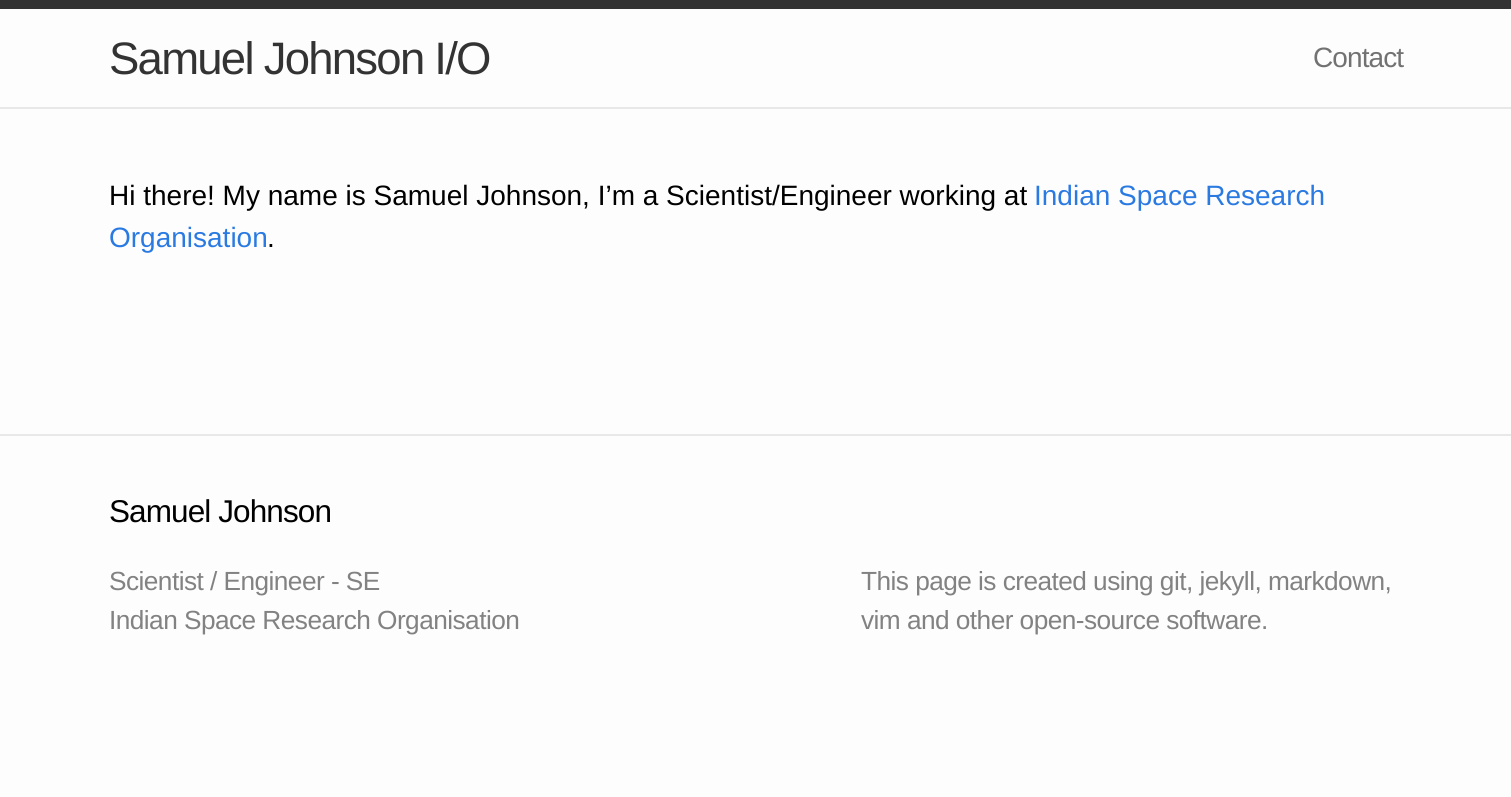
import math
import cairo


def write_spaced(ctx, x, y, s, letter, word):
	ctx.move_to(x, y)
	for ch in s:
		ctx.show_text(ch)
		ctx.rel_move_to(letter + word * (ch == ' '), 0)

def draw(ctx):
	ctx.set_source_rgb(0.992, 0.992, 0.992)
	ctx.paint()
	ctx.set_source_rgb(0.2, 0.2, 0.2)
	ctx.rectangle(0, 0, 1511, 9)
	ctx.fill()
	ctx.set_source_rgb(0.91, 0.91, 0.91)
	ctx.rectangle(0, 107, 1511, 2)
	ctx.fill()
	ctx.select_font_face('Liberation Sans')
	ctx.set_font_size(45.5)
	ctx.set_source_rgb(0.2, 0.2, 0.2)
	write_spaced(ctx, 109, 74, 'Samuel Johnson I/O', -1.75, 0)
	ctx.set_font_size(28)
	ctx.set_source_rgb(0.447, 0.447, 0.447)
	write_spaced(ctx, 1313, 67, 'Contact', -0.9, 0)
	ctx.set_source_rgb(0, 0, 0)
	ctx.move_to(109, 205)
	ctx.show_text('Hi there! My name is Samuel Johnson, I’m a Scientist/Engineer working at')
	ctx.set_source_rgb(0.165, 0.478, 0.886)
	ctx.move_to(1034, 205)
	ctx.show_text('Indian Space Research')
	ctx.move_to(109, 247)
	ctx.show_text('Organisation')
	ctx.set_source_rgb(0, 0, 0)
	ctx.move_to(267, 247)
	ctx.show_text('.')
	ctx.set_source_rgb(0.91, 0.91, 0.91)
	ctx.rectangle(0, 434, 1511, 2)
	ctx.fill()
	ctx.set_font_size(31.5)
	ctx.set_source_rgb(0, 0, 0)
	write_spaced(ctx, 109, 522, 'Samuel Johnson', -0.9, 0)
	ctx.set_font_size(26.25)
	ctx.set_source_rgb(0.51, 0.51, 0.51)
	for x, y, s in [
		(109, 590, 'Scientist / Engineer - SE'),
		(109, 629, 'Indian Space Research Organisation'),
		(861, 590, 'This page is created using git, jekyll, markdown,'),
		(861, 629, 'vim and other open-source software.'),
	]:
		write_spaced(ctx, x, y, s, -0.55, 0)


surface = cairo.ImageSurface(cairo.FORMAT_RGB24, 1511, 797)
ctx = cairo.Context(surface)
options = cairo.FontOptions()
options.set_hint_metrics(cairo.HINT_METRICS_OFF)
options.set_hint_style(cairo.HINT_STYLE_NONE)
ctx.set_font_options(options)
ctx.set_miter_limit(4)
draw(ctx)
surface.write_to_png('image.png')
